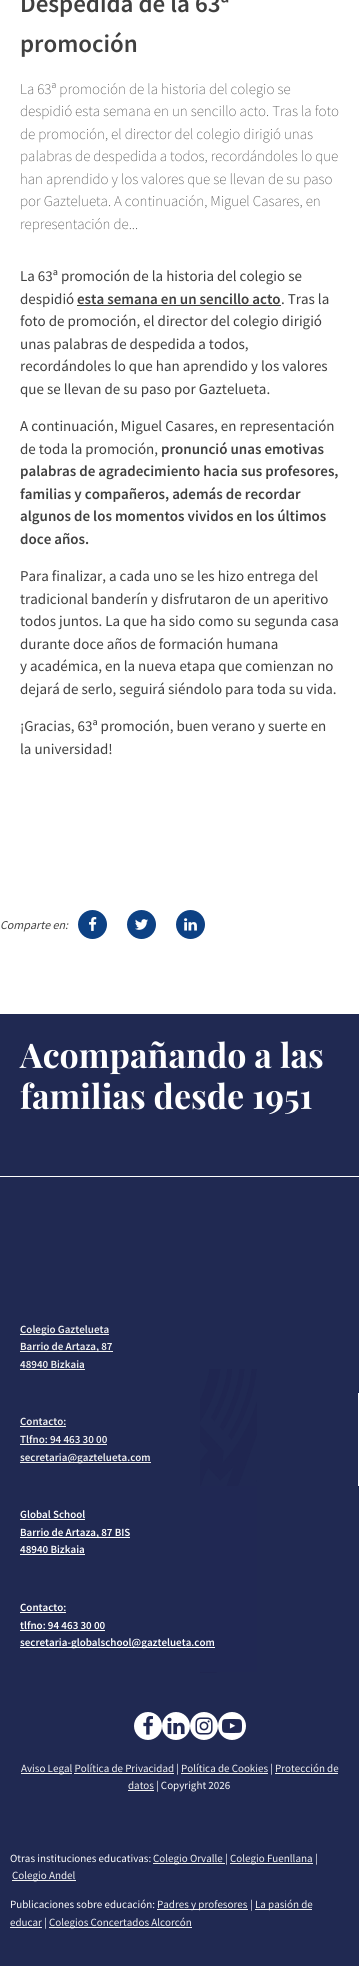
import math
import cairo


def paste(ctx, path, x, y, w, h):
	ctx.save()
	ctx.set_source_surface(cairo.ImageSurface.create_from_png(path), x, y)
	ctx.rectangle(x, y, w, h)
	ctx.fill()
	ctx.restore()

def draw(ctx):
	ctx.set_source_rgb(1, 1, 1)
	ctx.paint()
	ctx.select_font_face('Source Sans Pro SemiBold')
	ctx.set_font_size(25)
	ctx.set_source_rgb(0.251, 0.251, 0.251)
	ctx.move_to(20, 12)
	ctx.show_text('Despedida de la 63ª')
	ctx.move_to(20, 52)
	ctx.show_text('promoción')
	ctx.select_font_face('Source Sans Pro ExtraLight')
	ctx.set_font_size(15)
	for x, y, s in [
		(20, 94, 'La 63ª promoción de la historia del colegio se'),
		(20, 116, 'despidió esta semana en un sencillo acto. Tras la foto'),
		(20, 139, 'de promoción, el director del colegio dirigió unas'),
		(20, 161, 'palabras de despedida a todos, recordándoles lo que'),
		(20, 184, 'han aprendido y los valores que se llevan de su paso'),
		(20, 206, 'por Gaztelueta. A continuación, Miguel Casares, en'),
		(20, 229, 'representación de...'),
	]:
		ctx.move_to(x, y)
		ctx.show_text(s)
	ctx.select_font_face('Source Sans Pro')
	ctx.move_to(20, 281)
	ctx.show_text('La 63ª promoción de la historia del colegio se')
	ctx.move_to(20, 304)
	ctx.show_text('despidió')
	ctx.select_font_face('Source Sans Pro SemiBold')
	ctx.move_to(77, 304)
	ctx.show_text('esta semana en un sencillo acto')
	ctx.rectangle(77, 305, 204, 1)
	ctx.fill()
	ctx.select_font_face('Source Sans Pro')
	for x, y, s in [
		(281, 304, '. Tras la'),
		(20, 326, 'foto de promoción, el director del colegio dirigió'),
		(20, 349, 'unas palabras de despedida a todos,'),
		(20, 371, 'recordándoles lo que han aprendido y los valores'),
		(20, 394, 'que se llevan de su paso por Gaztelueta.'),
		(20, 431, 'A continuación, Miguel Casares, en representación'),
		(20, 454, 'de toda la promoción,'),
	]:
		ctx.move_to(x, y)
		ctx.show_text(s)
	ctx.select_font_face('Source Sans Pro SemiBold')
	for x, y, s in [
		(161, 454, 'pronunció unas emotivas'),
		(20, 476, 'palabras de agradecimiento hacia sus profesores,'),
		(20, 499, 'familias y compañeros, además de recordar'),
		(20, 521, 'algunos de los momentos vividos en los últimos'),
		(20, 544, 'doce años.'),
	]:
		ctx.move_to(x, y)
		ctx.show_text(s)
	ctx.select_font_face('Source Sans Pro')
	for x, y, s in [
		(20, 581, 'Para finalizar, a cada uno se les hizo entrega del'),
		(20, 604, 'tradicional banderín y disfrutaron de un aperitivo'),
		(20, 626, 'todos juntos. La que ha sido como su segunda casa'),
		(20, 649, 'durante doce años de formación humana'),
		(20, 671, 'y académica, en la nueva etapa que comienzan no'),
		(20, 694, 'dejará de serlo, seguirá siéndolo para toda su vida.'),
		(20, 731, '¡Gracias, 63ª promoción, buen verano y suerte en'),
		(20, 754, 'la universidad!'),
	]:
		ctx.move_to(x, y)
		ctx.show_text(s)
	ctx.select_font_face('Source Sans Pro', cairo.FONT_SLANT_ITALIC)
	ctx.set_font_size(12)
	ctx.move_to(0, 929)
	ctx.show_text('Comparte en:')
	ctx.set_source_rgb(0.051, 0.255, 0.518)
	ctx.new_path()
	ctx.arc(92.5, 924.5, 14.5, 0, 2 * math.pi)
	ctx.fill()
	paste(ctx, 'media/1.png', 89, 917, 8, 14)
	ctx.arc(141.5, 924.5, 14.5, 0, 2 * math.pi)
	ctx.fill()
	paste(ctx, 'media/2.png', 135, 919, 13, 11)
	ctx.arc(190.5, 924.5, 14.5, 0, 2 * math.pi)
	ctx.fill()
	paste(ctx, 'media/3.png', 184, 918, 13, 13)
	ctx.set_source_rgb(0.125, 0.161, 0.322)
	ctx.rectangle(0, 1014, 359, 952)
	ctx.fill()
	paste(ctx, 'media/4.png', 200, 1369, 57, 304)
	ctx.select_font_face('Playfair Display', cairo.FONT_SLANT_NORMAL, cairo.FONT_WEIGHT_BOLD)
	ctx.set_font_size(34)
	ctx.set_source_rgb(1, 1, 1)
	ctx.move_to(20, 1068)
	ctx.show_text('Acompañando a las')
	ctx.move_to(20, 1109)
	ctx.show_text('familias desde 1951')
	ctx.rectangle(0, 1176, 359, 1)
	ctx.fill()
	ctx.set_source_rgb(0.949, 0.949, 0.949)
	ctx.rectangle(20, 1334, 89, 1)
	ctx.fill()
	ctx.select_font_face('Source Sans Pro SemiBold')
	ctx.set_font_size(11)
	ctx.move_to(20, 1333)
	ctx.show_text('Colegio Gaztelueta')
	ctx.rectangle(20, 1351, 93, 1)
	ctx.fill()
	ctx.move_to(20, 1350)
	ctx.show_text('Barrio de Artaza, 87')
	ctx.move_to(20, 1368)
	ctx.show_text('48940 Bizkaia')
	ctx.rectangle(20, 1369, 65, 1)
	ctx.fill()
	ctx.set_source_rgb(1, 1, 1)
	ctx.rectangle(358, 1393, 1, 93)
	ctx.fill()
	ctx.set_source_rgb(0.949, 0.949, 0.949)
	ctx.move_to(20, 1425)
	ctx.show_text('Contacto:')
	ctx.rectangle(20, 1426, 46, 1)
	ctx.fill()
	ctx.move_to(20, 1443)
	ctx.show_text('Tlfno: 94 463 30 00')
	ctx.rectangle(20, 1444, 87, 1)
	ctx.fill()
	ctx.rectangle(20, 1462, 131, 1)
	ctx.fill()
	ctx.move_to(20, 1461)
	ctx.show_text('secretaria@gaztelueta.com')
	ctx.set_source_rgb(0.125, 0.157, 0.325)
	ctx.rectangle(200, 1486, 57, 186)
	ctx.fill()
	ctx.set_source_rgb(1, 1, 1)
	ctx.move_to(20, 1518)
	ctx.show_text('Global School')
	ctx.rectangle(20, 1519, 65, 1)
	ctx.fill()
	ctx.rectangle(20, 1537, 110, 1)
	ctx.fill()
	ctx.move_to(20, 1536)
	ctx.show_text('Barrio de Artaza, 87 BIS')
	ctx.move_to(20, 1553)
	ctx.show_text('48940 Bizkaia')
	ctx.rectangle(20, 1554, 65, 1)
	ctx.fill()
	ctx.move_to(20, 1611)
	ctx.show_text('Contacto:')
	ctx.rectangle(20, 1612, 46, 1)
	ctx.fill()
	ctx.move_to(20, 1629)
	ctx.show_text('tlfno: 94 463 30 00')
	ctx.rectangle(20, 1630, 85, 1)
	ctx.fill()
	ctx.rectangle(20, 1647, 195, 1)
	ctx.fill()
	ctx.move_to(20, 1646)
	ctx.show_text('secretaria-globalschool@gaztelueta.com')
	ctx.new_path()
	ctx.arc(148, 1726, 14, 0, 2 * math.pi)
	ctx.fill()
	paste(ctx, 'media/5.png', 143, 1716, 10, 19)
	ctx.arc(176, 1726, 14, 0, 2 * math.pi)
	ctx.fill()
	paste(ctx, 'media/6.png', 167, 1717, 18, 18)
	ctx.arc(204, 1726, 14, 0, 2 * math.pi)
	ctx.fill()
	paste(ctx, 'media/7.png', 195, 1717, 18, 18)
	ctx.arc(232, 1726, 14, 0, 2 * math.pi)
	ctx.fill()
	paste(ctx, 'media/8.png', 222, 1719, 20, 14)
	ctx.set_source_rgb(0.949, 0.949, 0.949)
	ctx.rectangle(21, 1773, 51, 1)
	ctx.fill()
	ctx.select_font_face('Source Sans Pro')
	ctx.move_to(21, 1772)
	ctx.show_text('Aviso Legal Política de Privacidad')
	ctx.set_source_rgb(1, 1, 1)
	ctx.move_to(176, 1772)
	ctx.show_text('|')
	ctx.set_source_rgb(0.949, 0.949, 0.949)
	ctx.move_to(181, 1772)
	ctx.show_text('Política de Cookies')
	ctx.rectangle(181, 1773, 87, 1)
	ctx.fill()
	ctx.set_source_rgb(1, 1, 1)
	ctx.move_to(270, 1772)
	ctx.show_text('|')
	ctx.set_source_rgb(0.949, 0.949, 0.949)
	ctx.move_to(275, 1772)
	ctx.show_text('Protección de')
	ctx.rectangle(275, 1773, 63, 1)
	ctx.fill()
	ctx.rectangle(74, 1773, 100, 1)
	ctx.fill()
	ctx.move_to(128, 1789)
	ctx.show_text('datos')
	ctx.rectangle(128, 1790, 26, 1)
	ctx.fill()
	ctx.set_source_rgb(1, 1, 1)
	ctx.move_to(156, 1789)
	ctx.show_text('| Copyright 2026')
	ctx.move_to(10, 1862)
	ctx.show_text('Otras instituciones educativas:')
	ctx.set_source_rgb(0.949, 0.949, 0.949)
	ctx.rectangle(153, 1863, 72, 1)
	ctx.fill()
	ctx.move_to(153, 1862)
	ctx.show_text('Colegio Orvalle')
	ctx.set_source_rgb(1, 1, 1)
	ctx.move_to(225, 1862)
	ctx.show_text('|')
	ctx.set_source_rgb(0.949, 0.949, 0.949)
	ctx.rectangle(230, 1863, 83, 1)
	ctx.fill()
	ctx.move_to(230, 1862)
	ctx.show_text('Colegio Fuenllana')
	ctx.set_source_rgb(1, 1, 1)
	ctx.move_to(315, 1862)
	ctx.show_text('|')
	ctx.set_source_rgb(0.949, 0.949, 0.949)
	ctx.rectangle(12, 1880, 64, 1)
	ctx.fill()
	ctx.move_to(12, 1879)
	ctx.show_text('Colegio Andel')
	ctx.set_source_rgb(1, 1, 1)
	ctx.move_to(10, 1908)
	ctx.show_text('Publicaciones sobre educación:')
	ctx.set_source_rgb(0.949, 0.949, 0.949)
	ctx.rectangle(157, 1909, 91, 1)
	ctx.fill()
	ctx.move_to(157, 1908)
	ctx.show_text('Padres y profesores')
	ctx.set_source_rgb(1, 1, 1)
	ctx.move_to(250, 1908)
	ctx.show_text('|')
	ctx.set_source_rgb(0.949, 0.949, 0.949)
	ctx.rectangle(255, 1909, 57, 1)
	ctx.fill()
	ctx.move_to(255, 1908)
	ctx.show_text('La pasión de')
	ctx.move_to(10, 1926)
	ctx.show_text('educar')
	ctx.rectangle(10, 1927, 32, 1)
	ctx.fill()
	ctx.set_source_rgb(1, 1, 1)
	ctx.move_to(44, 1926)
	ctx.show_text('|')
	ctx.set_source_rgb(0.949, 0.949, 0.949)
	ctx.rectangle(49, 1927, 143, 1)
	ctx.fill()
	ctx.move_to(49, 1926)
	ctx.show_text('Colegios Concertados Alcorcón')


surface = cairo.ImageSurface(cairo.FORMAT_RGB24, 359, 1966)
ctx = cairo.Context(surface)
options = cairo.FontOptions()
options.set_hint_metrics(cairo.HINT_METRICS_OFF)
options.set_hint_style(cairo.HINT_STYLE_NONE)
ctx.set_font_options(options)
ctx.set_miter_limit(4)
draw(ctx)
surface.write_to_png('image.png')
